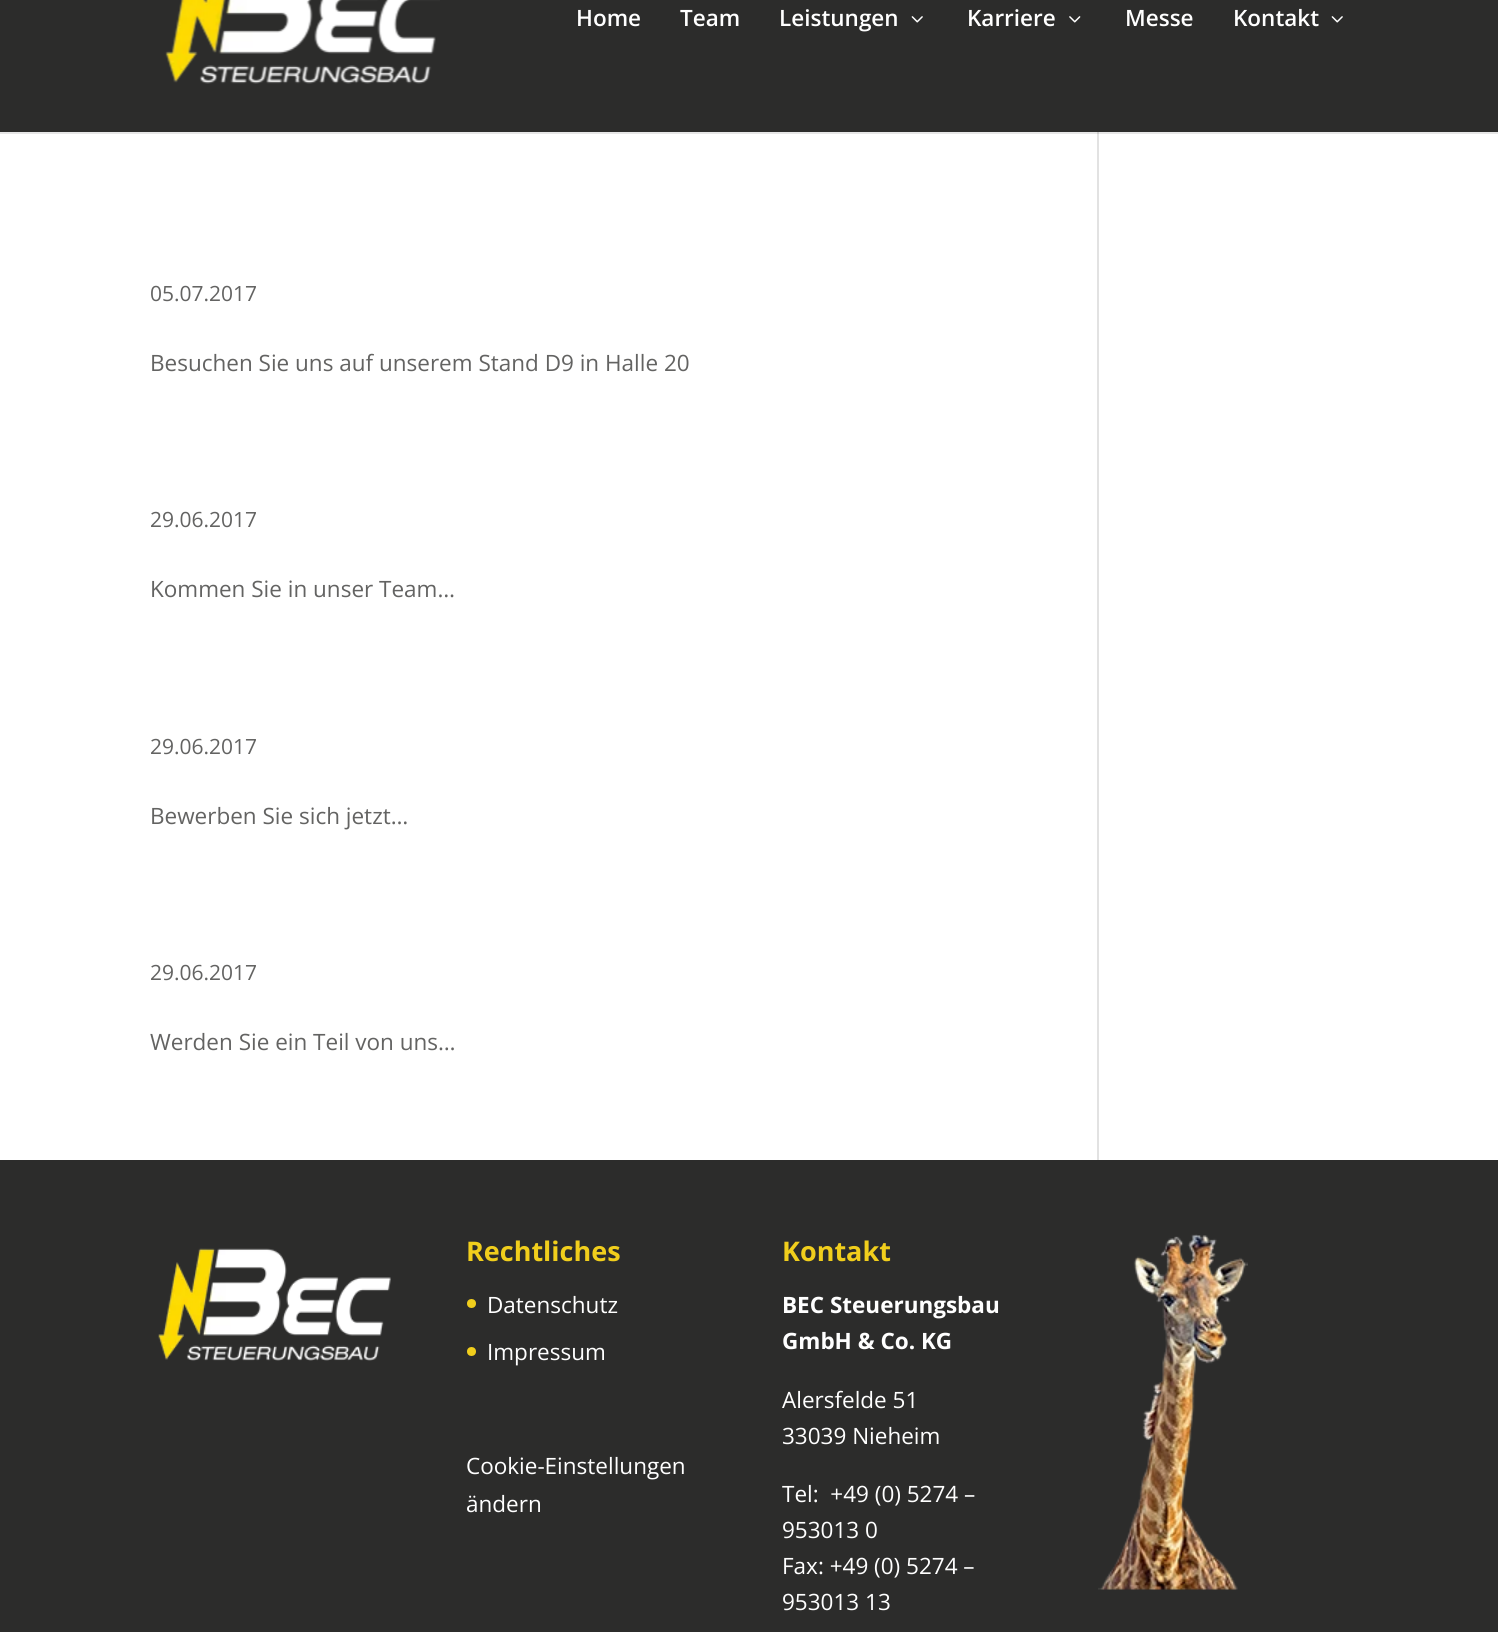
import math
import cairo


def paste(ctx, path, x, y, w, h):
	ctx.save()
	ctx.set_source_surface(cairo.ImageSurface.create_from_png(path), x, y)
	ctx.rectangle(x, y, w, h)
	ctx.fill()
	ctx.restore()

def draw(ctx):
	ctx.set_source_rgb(1, 1, 1)
	ctx.paint()
	ctx.set_source_rgb(0.886, 0.886, 0.886)
	ctx.rectangle(1097, 132, 2, 1028)
	ctx.fill()
	ctx.set_source_rgba(0, 0, 0, 0.1)
	ctx.new_path()
	ctx.move_to(0, 132)
	ctx.line_to(0, 134)
	ctx.line_to(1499, 134)
	ctx.line_to(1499, -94)
	ctx.line_to(1498, -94)
	ctx.line_to(1498, 132)
	ctx.close_path()
	ctx.fill()
	ctx.set_source_rgb(0.173, 0.173, 0.169)
	ctx.rectangle(0, 0, 1498, 132)
	ctx.fill()
	paste(ctx, 'media/1.png', 165, 0, 275, 84)
	ctx.select_font_face('Open Sans SemiBold')
	ctx.set_font_size(22.5)
	ctx.set_source_rgb(1, 1, 1)
	for x, y, s in [
		(576, 26, 'Home'),
		(680, 26, 'Team'),
		(779, 26, 'Leistungen'),
	]:
		ctx.move_to(x, y)
		ctx.show_text(s)
	paste(ctx, 'media/2.png', 911, 16, 12, 7)
	ctx.move_to(967, 26)
	ctx.show_text('Karriere')
	paste(ctx, 'media/3.png', 1069, 16, 12, 7)
	ctx.move_to(1125, 26)
	ctx.show_text('Messe')
	ctx.move_to(1233, 26)
	ctx.show_text('Kontakt')
	paste(ctx, 'media/2.png', 1331, 16, 12, 7)
	ctx.select_font_face('Open Sans')
	ctx.set_font_size(21)
	ctx.set_source_rgb(0.388, 0.388, 0.384)
	ctx.move_to(150, 301)
	ctx.show_text('05.07.2017')
	ctx.set_font_size(22.5)
	ctx.move_to(150, 371)
	ctx.show_text('Besuchen Sie uns auf unserem Stand D9 in Halle 20')
	ctx.set_font_size(21)
	ctx.move_to(150, 527)
	ctx.show_text('29.06.2017')
	ctx.set_font_size(22.5)
	ctx.move_to(150, 597)
	ctx.show_text('Kommen Sie in unser Team…')
	ctx.set_font_size(21)
	ctx.move_to(150, 754)
	ctx.show_text('29.06.2017')
	ctx.set_font_size(22.5)
	ctx.move_to(150, 824)
	ctx.show_text('Bewerben Sie sich jetzt…')
	ctx.set_font_size(21)
	ctx.move_to(150, 980)
	ctx.show_text('29.06.2017')
	ctx.set_font_size(22.5)
	ctx.move_to(150, 1050)
	ctx.show_text('Werden Sie ein Teil von uns…')
	ctx.set_source_rgb(0.173, 0.173, 0.169)
	ctx.rectangle(0, 1160, 1498, 472)
	ctx.fill()
	paste(ctx, 'media/4.png', 158, 1248, 233, 113)
	ctx.select_font_face('Open Sans', cairo.FONT_SLANT_NORMAL, cairo.FONT_WEIGHT_BOLD)
	ctx.set_font_size(27)
	ctx.set_source_rgb(0.945, 0.808, 0.11)
	ctx.move_to(466, 1261)
	ctx.show_text('Rechtliches')
	ctx.new_path()
	ctx.arc(471.5, 1303.5, 4.5, 0, 2 * math.pi)
	ctx.fill()
	ctx.select_font_face('Open Sans')
	ctx.set_font_size(22.5)
	ctx.set_source_rgb(1, 1, 1)
	ctx.move_to(487, 1313)
	ctx.show_text('Datenschutz')
	ctx.set_source_rgb(0.945, 0.808, 0.11)
	ctx.new_path()
	ctx.arc(471.5, 1351.5, 4.5, 0, 2 * math.pi)
	ctx.fill()
	ctx.set_source_rgb(1, 1, 1)
	for x, y, s in [
		(487, 1360, 'Impressum'),
		(466, 1474, 'Cookie-Einstellungen'),
		(466, 1512, 'ändern'),
	]:
		ctx.move_to(x, y)
		ctx.show_text(s)
	ctx.select_font_face('Open Sans', cairo.FONT_SLANT_NORMAL, cairo.FONT_WEIGHT_BOLD)
	ctx.set_font_size(27)
	ctx.set_source_rgb(0.945, 0.808, 0.11)
	ctx.move_to(782, 1261)
	ctx.show_text('Kontakt')
	ctx.set_font_size(22.5)
	ctx.set_source_rgb(1, 1, 1)
	ctx.move_to(782, 1313)
	ctx.show_text('BEC Steuerungsbau')
	ctx.move_to(782, 1349)
	ctx.show_text('GmbH & Co. KG')
	ctx.select_font_face('Open Sans')
	for x, y, s in [
		(782, 1408, 'Alersfelde 51'),
		(782, 1444, '33039 Nieheim'),
		(782, 1502, 'Tel:  +49 (0) 5274 –'),
		(782, 1538, '953013 0'),
		(782, 1574, 'Fax: +49 (0) 5274 –'),
		(782, 1610, '953013 13'),
	]:
		ctx.move_to(x, y)
		ctx.show_text(s)
	paste(ctx, 'media/5.png', 1098, 1234, 150, 356)


surface = cairo.ImageSurface(cairo.FORMAT_RGB24, 1498, 1632)
ctx = cairo.Context(surface)
options = cairo.FontOptions()
options.set_hint_metrics(cairo.HINT_METRICS_OFF)
options.set_hint_style(cairo.HINT_STYLE_NONE)
ctx.set_font_options(options)
ctx.set_miter_limit(4)
draw(ctx)
surface.write_to_png('image.png')
